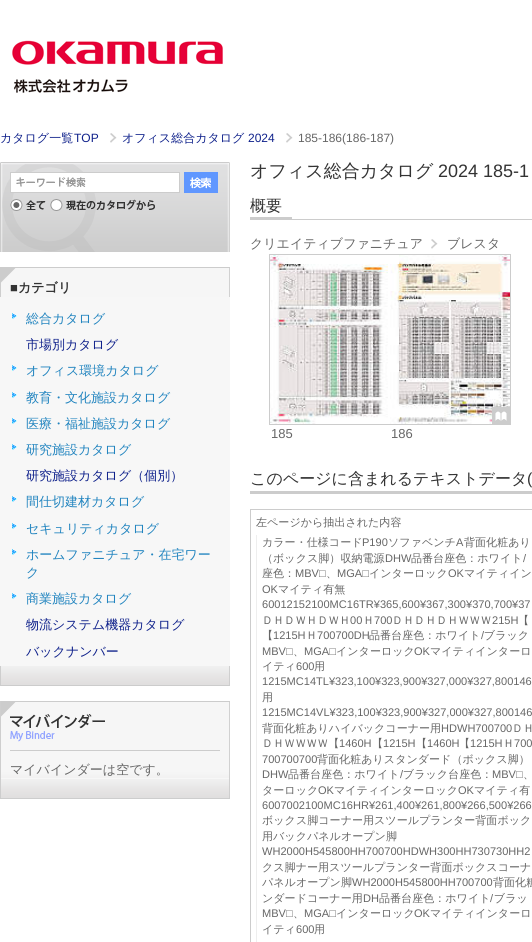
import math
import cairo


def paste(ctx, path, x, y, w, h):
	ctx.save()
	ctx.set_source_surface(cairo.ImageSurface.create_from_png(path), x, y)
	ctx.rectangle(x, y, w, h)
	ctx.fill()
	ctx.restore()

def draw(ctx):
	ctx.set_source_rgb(1, 1, 1)
	ctx.paint()
	paste(ctx, 'media/1.png', 12, 40, 211, 53)
	ctx.select_font_face('WenQuanYi Zen Hei Medium')
	ctx.set_font_size(12)
	ctx.set_source_rgb(0.059, 0.129, 0.545)
	ctx.move_to(0, 142)
	ctx.show_text('カタログ一覧')
	ctx.select_font_face('Liberation Sans')
	ctx.move_to(74, 142)
	ctx.show_text('TOP')
	paste(ctx, 'media/2.png', 110, 133, 7, 10)
	ctx.select_font_face('WenQuanYi Zen Hei Medium')
	ctx.move_to(122, 142)
	ctx.show_text('オフィス総合カタログ')
	ctx.select_font_face('Liberation Sans')
	ctx.move_to(248, 142)
	ctx.show_text('2024')
	paste(ctx, 'media/2.png', 286, 133, 7, 10)
	ctx.set_source_rgb(0.4, 0.4, 0.4)
	ctx.move_to(298, 142)
	ctx.show_text('185-186(186-187)')
	paste(ctx, 'media/3.png', 0, 162, 230, 90)
	ctx.set_source_rgb(1, 1, 1)
	ctx.rectangle(11, 173, 168, 19)
	ctx.fill()
	paste(ctx, 'media/4.png', 16, 177, 70, 10)
	ctx.rectangle(10.5, 172.5, 169, 20)
	ctx.set_source_rgb(0.8, 0.8, 0.8)
	ctx.set_line_width(1)
	ctx.stroke()
	paste(ctx, 'media/5.png', 184, 172, 34, 21)
	paste(ctx, 'media/6.png', 10, 199, 36, 12)
	paste(ctx, 'media/7.png', 50, 199, 105, 12)
	paste(ctx, 'media/8.png', 0, 666, 230, 20)
	paste(ctx, 'media/9.png', 0, 267, 230, 30)
	ctx.select_font_face('Liberation Sans', cairo.FONT_SLANT_NORMAL, cairo.FONT_WEIGHT_BOLD)
	ctx.set_font_size(13)
	ctx.set_source_rgb(0.2, 0.2, 0.2)
	ctx.move_to(10, 292)
	ctx.show_text('■')
	ctx.select_font_face('WenQuanYi Zen Hei', cairo.FONT_SLANT_NORMAL, cairo.FONT_WEIGHT_BOLD)
	ctx.move_to(18, 292)
	ctx.show_text('カテゴリ')
	ctx.set_source_rgb(0.965, 0.965, 0.965)
	ctx.rectangle(0, 297, 230, 369)
	ctx.fill()
	paste(ctx, 'media/10.png', 12, 313, 5, 6)
	ctx.select_font_face('WenQuanYi Zen Hei Medium')
	ctx.set_source_rgb(0.129, 0.518, 0.749)
	ctx.move_to(26, 323)
	ctx.show_text('総合カタログ')
	ctx.set_source_rgb(0.059, 0.129, 0.545)
	ctx.move_to(26, 349)
	ctx.show_text('市場別カタログ')
	paste(ctx, 'media/10.png', 12, 365, 5, 6)
	ctx.set_source_rgb(0.129, 0.518, 0.749)
	ctx.move_to(26, 375)
	ctx.show_text('オフィス環境カタログ')
	paste(ctx, 'media/10.png', 12, 392, 5, 6)
	ctx.move_to(26, 402)
	ctx.show_text('教育・文化施設カタログ')
	paste(ctx, 'media/10.png', 12, 418, 5, 6)
	ctx.move_to(26, 428)
	ctx.show_text('医療・福祉施設カタログ')
	paste(ctx, 'media/10.png', 12, 444, 5, 6)
	ctx.move_to(26, 454)
	ctx.show_text('研究施設カタログ')
	ctx.set_source_rgb(0.059, 0.129, 0.545)
	ctx.move_to(26, 480)
	ctx.show_text('研究施設カタログ（個別）')
	paste(ctx, 'media/10.png', 12, 496, 5, 6)
	ctx.set_source_rgb(0.129, 0.518, 0.749)
	ctx.move_to(26, 506)
	ctx.show_text('間仕切建材カタログ')
	paste(ctx, 'media/10.png', 12, 523, 5, 6)
	ctx.move_to(26, 533)
	ctx.show_text('セキュリティカタログ')
	paste(ctx, 'media/10.png', 12, 549, 5, 6)
	ctx.move_to(26, 559)
	ctx.show_text('ホームファニチュア・在宅ワー')
	ctx.move_to(26, 577)
	ctx.show_text('ク')
	paste(ctx, 'media/10.png', 12, 593, 5, 6)
	ctx.move_to(26, 603)
	ctx.show_text('商業施設カタログ')
	ctx.set_source_rgb(0.059, 0.129, 0.545)
	ctx.move_to(26, 629)
	ctx.show_text('物流システム機器カタログ')
	ctx.move_to(26, 656)
	ctx.show_text('バックナンバー')
	paste(ctx, 'media/11.png', 0, 701, 230, 98)
	paste(ctx, 'media/12.png', 1, 701, 229, 16)
	paste(ctx, 'media/13.png', 10, 714, 95, 28)
	ctx.set_source_rgb(0.8, 0.8, 0.8)
	ctx.rectangle(10, 750, 210, 1)
	ctx.fill()
	ctx.set_source_rgb(0.965, 0.965, 0.965)
	ctx.rectangle(1, 778, 228, 1)
	ctx.fill()
	ctx.set_source_rgb(0.4, 0.4, 0.4)
	ctx.move_to(10, 774)
	ctx.show_text('マイバインダーは空です。')
	ctx.set_font_size(18)
	ctx.set_source_rgb(0.2, 0.2, 0.2)
	ctx.move_to(250, 177)
	ctx.show_text('オフィス総合カタログ')
	ctx.select_font_face('Liberation Sans')
	ctx.move_to(438, 177)
	ctx.show_text('2024 185-1')
	ctx.set_source_rgb(0.8, 0.8, 0.8)
	ctx.rectangle(250, 219, 282, 1)
	ctx.fill()
	ctx.rectangle(250, 217, 42, 2)
	ctx.fill()
	ctx.select_font_face('WenQuanYi Zen Hei Medium')
	ctx.set_font_size(16)
	ctx.set_source_rgb(0.2, 0.2, 0.2)
	ctx.move_to(250, 211)
	ctx.show_text('概要')
	ctx.set_font_size(13)
	ctx.set_source_rgb(0.4, 0.4, 0.4)
	ctx.move_to(250, 248)
	ctx.show_text('クリエイティブファニチュア')
	paste(ctx, 'media/2.png', 431, 239, 7, 10)
	ctx.move_to(447, 248)
	ctx.show_text('ブレスタ')
	ctx.rectangle(269.5, 254.5, 241, 170)
	ctx.set_source_rgb(0.8, 0.8, 0.8)
	ctx.stroke()
	paste(ctx, 'media/14.png', 270, 255, 120, 169)
	paste(ctx, 'media/15.png', 390, 255, 120, 169)
	paste(ctx, 'media/16.png', 492, 407, 18, 17)
	ctx.select_font_face('Liberation Sans')
	ctx.set_source_rgb(0.4, 0.4, 0.4)
	ctx.move_to(271, 438)
	ctx.show_text('185')
	ctx.move_to(391, 438)
	ctx.show_text('186')
	ctx.set_source_rgb(0.8, 0.8, 0.8)
	ctx.rectangle(250, 491, 282, 3)
	ctx.fill()
	ctx.select_font_face('WenQuanYi Zen Hei Medium')
	ctx.set_font_size(16)
	ctx.set_source_rgb(0.2, 0.2, 0.2)
	ctx.move_to(250, 484)
	ctx.show_text('このページに含まれるテキストデータ')
	ctx.select_font_face('Liberation Sans')
	ctx.move_to(527, 484)
	ctx.show_text('(')
	ctx.rectangle(250.5, 509.5, 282, 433)
	ctx.set_source_rgb(0.8, 0.8, 0.8)
	ctx.stroke()
	ctx.select_font_face('WenQuanYi Zen Hei Medium')
	ctx.set_font_size(11.05)
	ctx.set_source_rgb(0.4, 0.4, 0.4)
	ctx.move_to(256, 526)
	ctx.show_text('左ページから抽出された内容')
	ctx.set_source_rgb(0.933, 0.933, 0.933)
	ctx.rectangle(256, 535, 1, 407)
	ctx.fill()
	ctx.set_source_rgb(0.4, 0.4, 0.4)
	ctx.move_to(262, 546)
	ctx.show_text('カラー・仕様コード')
	ctx.select_font_face('Liberation Sans')
	ctx.move_to(362, 546)
	ctx.show_text('P190')
	ctx.select_font_face('WenQuanYi Zen Hei Medium')
	ctx.move_to(388, 546)
	ctx.show_text('ソファベンチ')
	ctx.select_font_face('Liberation Sans')
	ctx.move_to(456, 546)
	ctx.show_text('A')
	ctx.select_font_face('WenQuanYi Zen Hei Medium')
	ctx.move_to(464, 546)
	ctx.show_text('背面化粧あり')
	ctx.move_to(262, 562)
	ctx.show_text('（ボックス脚）収納電源')
	ctx.select_font_face('Liberation Sans')
	ctx.move_to(385, 562)
	ctx.show_text('DHW')
	ctx.select_font_face('WenQuanYi Zen Hei Medium')
	ctx.move_to(411, 562)
	ctx.show_text('品番台座色：ホワイト')
	ctx.select_font_face('Liberation Sans')
	ctx.move_to(523, 562)
	ctx.show_text('/')
	ctx.select_font_face('WenQuanYi Zen Hei Medium')
	ctx.move_to(262, 577)
	ctx.show_text('座色：')
	ctx.select_font_face('Liberation Sans')
	ctx.move_to(295, 577)
	ctx.show_text('MBV□')
	ctx.select_font_face('WenQuanYi Zen Hei Medium')
	ctx.move_to(326, 577)
	ctx.show_text('、')
	ctx.select_font_face('Liberation Sans')
	ctx.move_to(337, 577)
	ctx.show_text('MGA□')
	ctx.select_font_face('WenQuanYi Zen Hei Medium')
	ctx.move_to(369, 577)
	ctx.show_text('インターロック')
	ctx.select_font_face('Liberation Sans')
	ctx.move_to(448, 577)
	ctx.show_text('OK')
	ctx.select_font_face('WenQuanYi Zen Hei Medium')
	ctx.move_to(464, 577)
	ctx.show_text('マイティイン')
	ctx.select_font_face('Liberation Sans')
	ctx.move_to(262, 593)
	ctx.show_text('OK')
	ctx.select_font_face('WenQuanYi Zen Hei Medium')
	ctx.move_to(278, 593)
	ctx.show_text('マイティ有無')
	ctx.select_font_face('Liberation Sans')
	ctx.move_to(262, 608)
	ctx.show_text('60012152100MC16TR¥365,600¥367,300¥370,700¥37')
	ctx.select_font_face('WenQuanYi Zen Hei Medium')
	ctx.move_to(262, 624)
	ctx.show_text('ＤＨＤＷＨＤＷＨ')
	ctx.select_font_face('Liberation Sans')
	ctx.move_to(350, 624)
	ctx.show_text('00')
	ctx.select_font_face('WenQuanYi Zen Hei Medium')
	ctx.move_to(363, 624)
	ctx.show_text('Ｈ')
	ctx.select_font_face('Liberation Sans')
	ctx.move_to(374, 624)
	ctx.show_text('700')
	ctx.select_font_face('WenQuanYi Zen Hei Medium')
	ctx.move_to(392, 624)
	ctx.show_text('ＤＨＤＨＤＨＷＷＷ')
	ctx.select_font_face('Liberation Sans')
	ctx.move_to(492, 624)
	ctx.show_text('215H')
	ctx.select_font_face('WenQuanYi Zen Hei Medium')
	ctx.move_to(518, 624)
	ctx.show_text('【')
	ctx.move_to(262, 639)
	ctx.show_text('【')
	ctx.select_font_face('Liberation Sans')
	ctx.move_to(273, 639)
	ctx.show_text('1215H')
	ctx.select_font_face('WenQuanYi Zen Hei Medium')
	ctx.move_to(306, 639)
	ctx.show_text('Ｈ')
	ctx.select_font_face('Liberation Sans')
	ctx.move_to(317, 639)
	ctx.show_text('700700DH')
	ctx.select_font_face('WenQuanYi Zen Hei Medium')
	ctx.move_to(369, 639)
	ctx.show_text('品番台座色：ホワイト ブラック')
	ctx.select_font_face('Liberation Sans')
	ctx.move_to(481, 639)
	ctx.show_text('/')
	ctx.move_to(262, 655)
	ctx.show_text('MBV□')
	ctx.select_font_face('WenQuanYi Zen Hei Medium')
	ctx.move_to(293, 655)
	ctx.show_text('、')
	ctx.select_font_face('Liberation Sans')
	ctx.move_to(304, 655)
	ctx.show_text('MGA□')
	ctx.select_font_face('WenQuanYi Zen Hei Medium')
	ctx.move_to(336, 655)
	ctx.show_text('インターロック')
	ctx.select_font_face('Liberation Sans')
	ctx.move_to(414, 655)
	ctx.show_text('OK')
	ctx.select_font_face('WenQuanYi Zen Hei Medium')
	ctx.move_to(430, 655)
	ctx.show_text('マイティインターロ')
	ctx.move_to(262, 670)
	ctx.show_text('イティ')
	ctx.select_font_face('Liberation Sans')
	ctx.move_to(296, 670)
	ctx.show_text('600')
	ctx.select_font_face('WenQuanYi Zen Hei Medium')
	ctx.move_to(314, 670)
	ctx.show_text('用')
	ctx.select_font_face('Liberation Sans')
	ctx.move_to(262, 685)
	ctx.show_text('1215MC14TL¥323,100¥323,900¥327,000¥327,800146')
	ctx.select_font_face('WenQuanYi Zen Hei Medium')
	ctx.move_to(262, 701)
	ctx.show_text('用')
	ctx.select_font_face('Liberation Sans')
	ctx.move_to(262, 716)
	ctx.show_text('1215MC14VL¥323,100¥323,900¥327,000¥327,800146')
	ctx.select_font_face('WenQuanYi Zen Hei Medium')
	ctx.move_to(262, 732)
	ctx.show_text('背面化粧ありハイバックコーナー用')
	ctx.select_font_face('Liberation Sans')
	ctx.move_to(441, 732)
	ctx.show_text('HDWH700700')
	ctx.select_font_face('WenQuanYi Zen Hei Medium')
	ctx.move_to(512, 732)
	ctx.show_text('ＤＨ')
	ctx.move_to(262, 747)
	ctx.show_text('ＤＨＷＷＷＷ【')
	ctx.select_font_face('Liberation Sans')
	ctx.move_to(339, 747)
	ctx.show_text('1460H')
	ctx.select_font_face('WenQuanYi Zen Hei Medium')
	ctx.move_to(372, 747)
	ctx.show_text('【')
	ctx.select_font_face('Liberation Sans')
	ctx.move_to(383, 747)
	ctx.show_text('1215H')
	ctx.select_font_face('WenQuanYi Zen Hei Medium')
	ctx.move_to(416, 747)
	ctx.show_text('【')
	ctx.select_font_face('Liberation Sans')
	ctx.move_to(427, 747)
	ctx.show_text('1460H')
	ctx.select_font_face('WenQuanYi Zen Hei Medium')
	ctx.move_to(459, 747)
	ctx.show_text('【')
	ctx.select_font_face('Liberation Sans')
	ctx.move_to(470, 747)
	ctx.show_text('1215H')
	ctx.select_font_face('WenQuanYi Zen Hei Medium')
	ctx.move_to(503, 747)
	ctx.show_text('Ｈ')
	ctx.select_font_face('Liberation Sans')
	ctx.move_to(514, 747)
	ctx.show_text('700')
	ctx.move_to(262, 763)
	ctx.show_text('700700700')
	ctx.select_font_face('WenQuanYi Zen Hei Medium')
	ctx.move_to(317, 763)
	ctx.show_text('背面化粧ありスタンダード（ボックス脚）')
	ctx.select_font_face('Liberation Sans')
	ctx.move_to(262, 778)
	ctx.show_text('DHW')
	ctx.select_font_face('WenQuanYi Zen Hei Medium')
	ctx.move_to(288, 778)
	ctx.show_text('品番台座色：ホワイト ブラック台座色：')
	ctx.select_font_face('Liberation Sans')
	ctx.move_to(400, 778)
	ctx.show_text('/')
	ctx.move_to(492, 778)
	ctx.show_text('MBV□')
	ctx.select_font_face('WenQuanYi Zen Hei Medium')
	ctx.move_to(523, 778)
	ctx.show_text('、')
	ctx.move_to(262, 794)
	ctx.show_text('ターロック')
	ctx.select_font_face('Liberation Sans')
	ctx.move_to(318, 794)
	ctx.show_text('OK')
	ctx.select_font_face('WenQuanYi Zen Hei Medium')
	ctx.move_to(334, 794)
	ctx.show_text('マイティインターロック')
	ctx.select_font_face('Liberation Sans')
	ctx.move_to(458, 794)
	ctx.show_text('OK')
	ctx.select_font_face('WenQuanYi Zen Hei Medium')
	ctx.move_to(474, 794)
	ctx.show_text('マイティ有')
	ctx.select_font_face('Liberation Sans')
	ctx.move_to(262, 809)
	ctx.show_text('6007002100MC16HR¥261,400¥261,800¥266,500¥266')
	ctx.select_font_face('WenQuanYi Zen Hei Medium')
	ctx.move_to(262, 824)
	ctx.show_text('ボックス脚コーナー用スツールプランター背面ボック')
	ctx.move_to(262, 840)
	ctx.show_text('用バックパネルオープン脚')
	ctx.select_font_face('Liberation Sans')
	ctx.move_to(262, 855)
	ctx.show_text('WH2000H545800HH700700HDWH300HH730730HH2')
	ctx.select_font_face('WenQuanYi Zen Hei Medium')
	ctx.move_to(262, 871)
	ctx.show_text('クス脚ナー用スツールプランター背面ボックスコーナ')
	ctx.move_to(262, 886)
	ctx.show_text('パネルオープン脚')
	ctx.select_font_face('Liberation Sans')
	ctx.move_to(352, 886)
	ctx.show_text('WH2000H545800HH700700')
	ctx.select_font_face('WenQuanYi Zen Hei Medium')
	ctx.move_to(493, 886)
	ctx.show_text('背面化粧')
	ctx.move_to(262, 902)
	ctx.show_text('ンダードコーナー用')
	ctx.select_font_face('Liberation Sans')
	ctx.move_to(363, 902)
	ctx.show_text('DH')
	ctx.select_font_face('WenQuanYi Zen Hei Medium')
	ctx.move_to(379, 902)
	ctx.show_text('品番台座色：ホワイト ブラッ')
	ctx.select_font_face('Liberation Sans')
	ctx.move_to(490, 902)
	ctx.show_text('/')
	ctx.move_to(262, 917)
	ctx.show_text('MBV□')
	ctx.select_font_face('WenQuanYi Zen Hei Medium')
	ctx.move_to(293, 917)
	ctx.show_text('、')
	ctx.select_font_face('Liberation Sans')
	ctx.move_to(304, 917)
	ctx.show_text('MGA□')
	ctx.select_font_face('WenQuanYi Zen Hei Medium')
	ctx.move_to(336, 917)
	ctx.show_text('インターロック')
	ctx.select_font_face('Liberation Sans')
	ctx.move_to(414, 917)
	ctx.show_text('OK')
	ctx.select_font_face('WenQuanYi Zen Hei Medium')
	ctx.move_to(430, 917)
	ctx.show_text('マイティインターロ')
	ctx.move_to(262, 933)
	ctx.show_text('イティ')
	ctx.select_font_face('Liberation Sans')
	ctx.move_to(296, 933)
	ctx.show_text('600')
	ctx.select_font_face('WenQuanYi Zen Hei Medium')
	ctx.move_to(314, 933)
	ctx.show_text('用')


surface = cairo.ImageSurface(cairo.FORMAT_RGB24, 532, 942)
ctx = cairo.Context(surface)
options = cairo.FontOptions()
options.set_hint_metrics(cairo.HINT_METRICS_OFF)
options.set_hint_style(cairo.HINT_STYLE_NONE)
ctx.set_font_options(options)
ctx.set_miter_limit(4)
draw(ctx)
surface.write_to_png('image.png')
